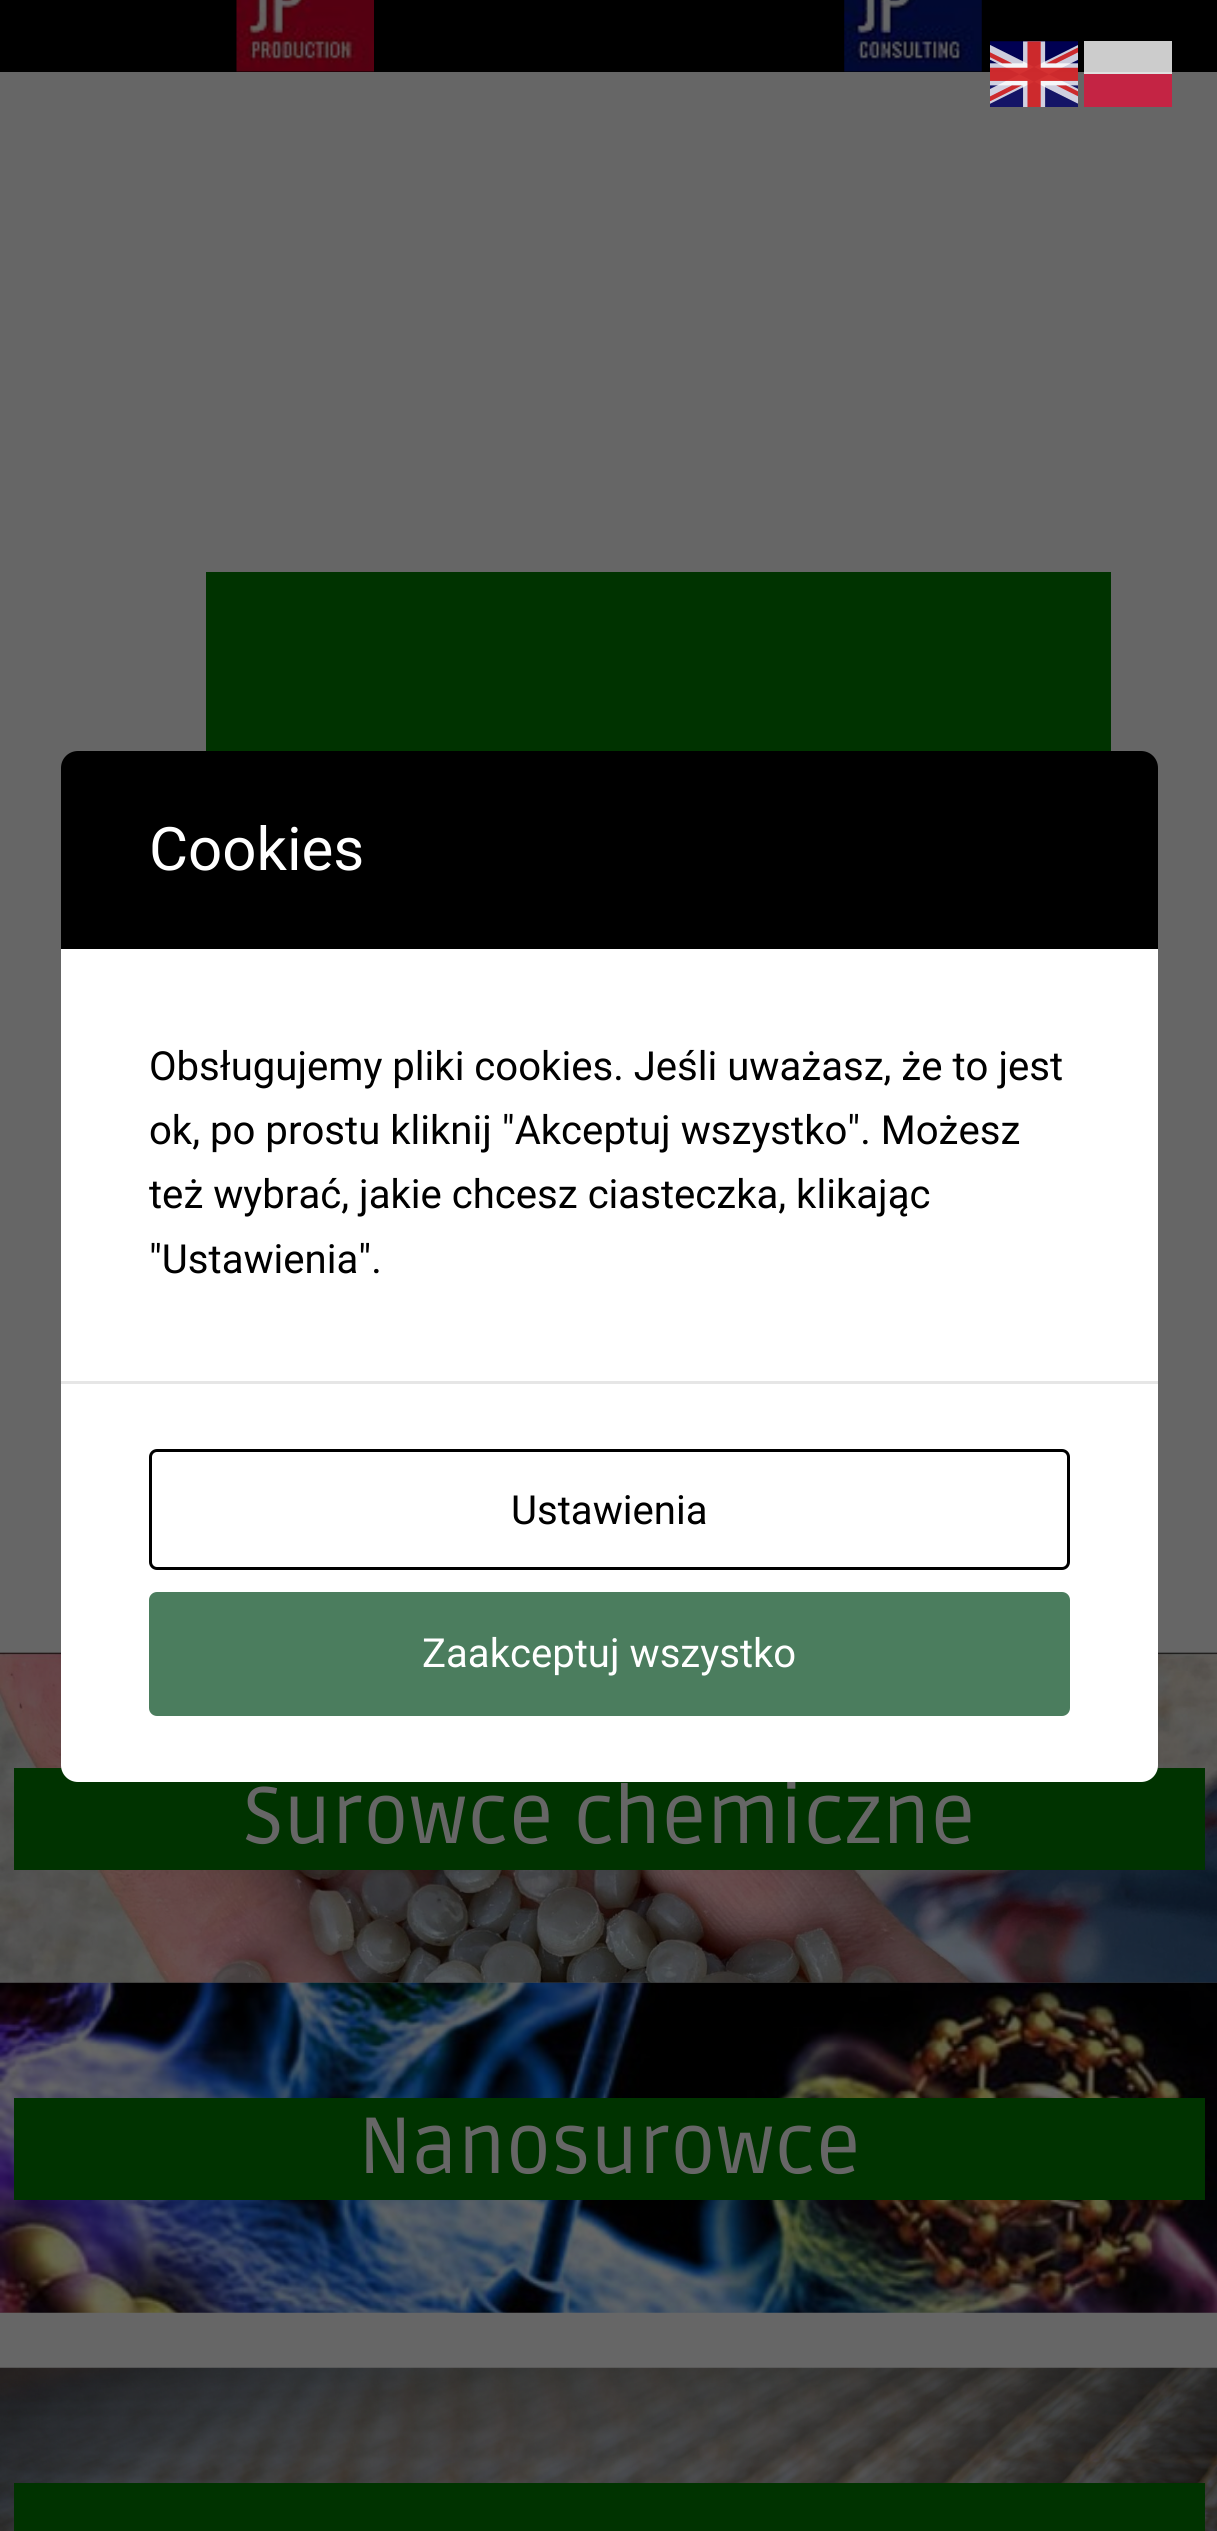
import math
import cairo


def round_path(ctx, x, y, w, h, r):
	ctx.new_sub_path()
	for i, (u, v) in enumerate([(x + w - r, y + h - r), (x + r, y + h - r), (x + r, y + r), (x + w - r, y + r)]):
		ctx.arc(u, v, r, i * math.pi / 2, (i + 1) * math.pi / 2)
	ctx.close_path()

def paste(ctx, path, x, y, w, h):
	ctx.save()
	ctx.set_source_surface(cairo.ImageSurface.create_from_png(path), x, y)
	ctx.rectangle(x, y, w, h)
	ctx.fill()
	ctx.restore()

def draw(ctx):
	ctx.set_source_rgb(0.4, 0.4, 0.4)
	ctx.paint()
	ctx.set_source_rgb(0.878, 0.878, 0.878)
	ctx.rectangle(1084, 72, 88, 2)
	ctx.fill()
	ctx.set_source_rgb(0, 0, 0)
	ctx.rectangle(0, 0, 1217, 72)
	ctx.fill()
	paste(ctx, 'media/1.png', 990, 41, 88, 66)
	ctx.set_source_rgb(0.769, 0.141, 0.267)
	ctx.rectangle(1084, 74, 88, 33)
	ctx.fill()
	ctx.set_source_rgb(0, 0, 0)
	ctx.new_path()
	ctx.move_to(78, 751)
	ctx.line_to(1141, 751)
	ctx.curve_to(1150.5, 751, 1158, 758.5, 1158, 768)
	ctx.line_to(1158, 949)
	ctx.line_to(61, 949)
	ctx.line_to(61, 768)
	ctx.curve_to(61, 758.5, 68.5, 751, 78, 751)
	ctx.close_path()
	ctx.fill()
	ctx.select_font_face('Roboto')
	ctx.set_font_size(60)
	ctx.set_source_rgb(1, 1, 1)
	ctx.move_to(149, 870)
	ctx.show_text('Cookies')
	ctx.rectangle(61, 949, 1097, 432)
	ctx.fill()
	ctx.set_font_size(40.1)
	ctx.set_source_rgb(0, 0, 0)
	for x, y, s in [
		(149, 1080, 'Obsługujemy pliki cookies. Jeśli uważasz, że to jest'),
		(149, 1144, 'ok, po prostu kliknij "Akceptuj wszystko". Możesz'),
		(149, 1208, 'też wybrać, jakie chcesz ciasteczka, klikając'),
		(149, 1273, '"Ustawienia".'),
	]:
		ctx.move_to(x, y)
		ctx.show_text(s)
	paste(ctx, 'media/4.png', 0, 1652, 1217, 331)
	ctx.set_source_rgb(0, 0.2, 0)
	ctx.rectangle(14, 1768, 1191, 102)
	ctx.fill()
	ctx.select_font_face('Ruda')
	ctx.set_font_size(79.75)
	ctx.set_source_rgb(0.4, 0.4, 0.4)
	ctx.move_to(243, 1843)
	ctx.show_text('Surowce chemiczne')
	ctx.set_source_rgb(1, 1, 1)
	ctx.new_path()
	ctx.move_to(61, 1381)
	ctx.line_to(1158, 1381)
	ctx.line_to(1158, 1765)
	ctx.curve_to(1158, 1774.5, 1150.5, 1782, 1141, 1782)
	ctx.line_to(78, 1782)
	ctx.curve_to(68.5, 1782, 61, 1774.5, 61, 1765)
	ctx.close_path()
	ctx.fill()
	ctx.set_source_rgb(0.902, 0.902, 0.902)
	ctx.rectangle(61, 1381, 1097, 3)
	ctx.fill()
	round_path(ctx, 150.5, 1450.5, 918, 118, 6.5)
	ctx.set_source_rgb(0, 0, 0)
	ctx.set_line_width(3)
	ctx.stroke()
	ctx.select_font_face('Roboto')
	ctx.set_font_size(40.1)
	ctx.move_to(511, 1524)
	ctx.show_text('Ustawienia')
	ctx.set_source_rgb(0.294, 0.49, 0.369)
	round_path(ctx, 150.5, 1593.5, 918, 121, 6.5)
	ctx.fill_preserve()
	ctx.stroke()
	ctx.set_source_rgb(1, 1, 1)
	ctx.move_to(422, 1667)
	ctx.show_text('Zaakceptuj wszystko')
	ctx.set_source_rgb(0.8, 0.8, 0.8)
	ctx.rectangle(1084, 41, 88, 31)
	ctx.fill()
	paste(ctx, 'media/2.png', 236, 0, 138, 72)
	paste(ctx, 'media/3.png', 844, 0, 138, 72)
	ctx.set_source_rgb(0, 0.2, 0)
	ctx.rectangle(206, 572, 905, 179)
	ctx.fill()
	paste(ctx, 'media/5.png', 0, 1982, 1217, 331)
	ctx.rectangle(14, 2098, 1191, 102)
	ctx.fill()
	ctx.select_font_face('Ruda')
	ctx.set_font_size(79.75)
	ctx.set_source_rgb(0.4, 0.4, 0.4)
	ctx.move_to(358, 2173)
	ctx.show_text('Nanosurowce')
	paste(ctx, 'media/6.png', 0, 2367, 1217, 164)
	ctx.set_source_rgb(0, 0.2, 0)
	ctx.rectangle(14, 2483, 1191, 48)
	ctx.fill()


surface = cairo.ImageSurface(cairo.FORMAT_RGB24, 1217, 2531)
ctx = cairo.Context(surface)
options = cairo.FontOptions()
options.set_hint_metrics(cairo.HINT_METRICS_OFF)
options.set_hint_style(cairo.HINT_STYLE_NONE)
ctx.set_font_options(options)
ctx.set_miter_limit(4)
draw(ctx)
surface.write_to_png('image.png')
